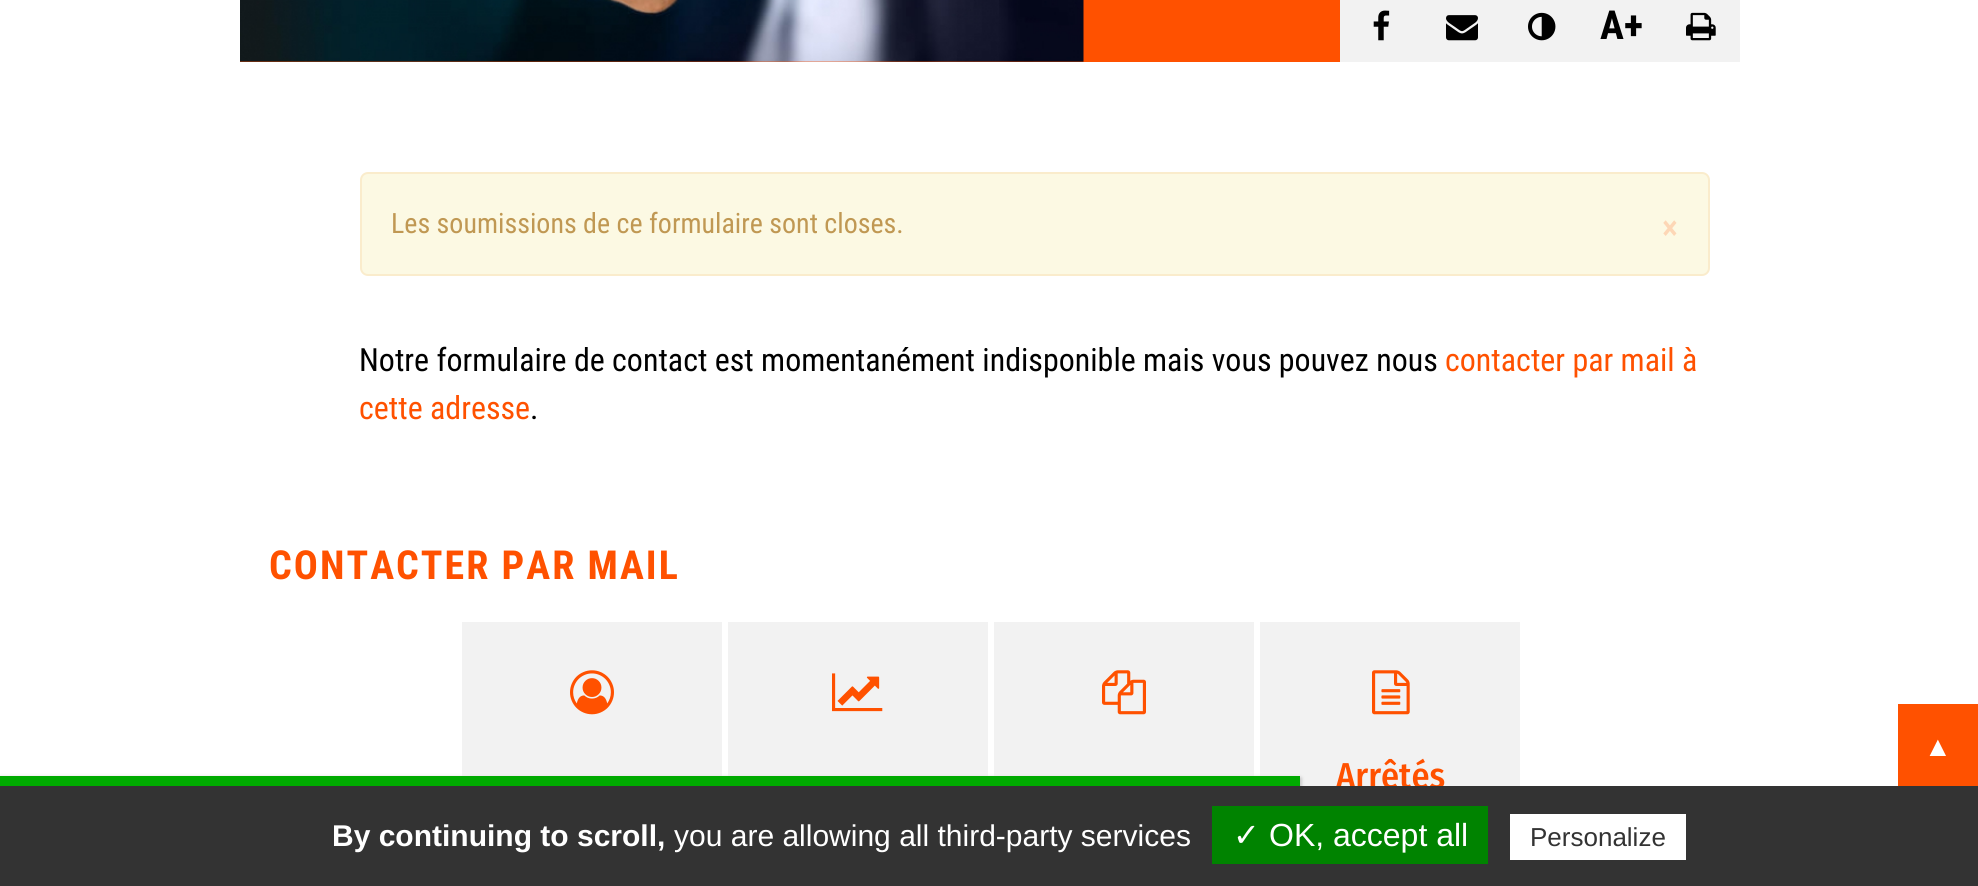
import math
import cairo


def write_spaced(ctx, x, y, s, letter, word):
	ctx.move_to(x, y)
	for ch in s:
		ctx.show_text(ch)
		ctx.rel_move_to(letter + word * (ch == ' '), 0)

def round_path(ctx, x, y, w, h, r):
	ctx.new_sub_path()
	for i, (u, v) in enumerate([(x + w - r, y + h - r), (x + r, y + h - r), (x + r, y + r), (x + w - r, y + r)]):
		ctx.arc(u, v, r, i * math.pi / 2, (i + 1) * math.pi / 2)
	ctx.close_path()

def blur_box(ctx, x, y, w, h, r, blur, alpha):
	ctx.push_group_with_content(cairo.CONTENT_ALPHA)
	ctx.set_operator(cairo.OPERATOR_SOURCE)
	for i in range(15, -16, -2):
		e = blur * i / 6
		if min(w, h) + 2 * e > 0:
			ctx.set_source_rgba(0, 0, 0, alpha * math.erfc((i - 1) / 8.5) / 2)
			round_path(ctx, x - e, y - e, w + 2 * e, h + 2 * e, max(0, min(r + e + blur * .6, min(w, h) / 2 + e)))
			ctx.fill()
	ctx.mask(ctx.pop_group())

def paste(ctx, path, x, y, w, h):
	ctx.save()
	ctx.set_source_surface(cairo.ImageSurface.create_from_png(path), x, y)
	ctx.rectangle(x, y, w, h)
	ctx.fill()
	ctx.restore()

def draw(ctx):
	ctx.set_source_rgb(1, 1, 1)
	ctx.paint()
	ctx.set_source_rgb(1, 0.318, 0)
	ctx.rectangle(240, 0, 1100, 62)
	ctx.fill()
	paste(ctx, 'media/1.png', 240, 0, 844, 62)
	ctx.set_source_rgb(0.949, 0.949, 0.949)
	ctx.rectangle(1340, 0, 400, 62)
	ctx.fill()
	paste(ctx, 'media/2.png', 1373, 10, 17, 31)
	paste(ctx, 'media/3.png', 1446, 15, 32, 26)
	paste(ctx, 'media/4.png', 1528, 12, 28, 29)
	ctx.select_font_face('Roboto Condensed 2', cairo.FONT_SLANT_NORMAL, cairo.FONT_WEIGHT_BOLD)
	ctx.set_font_size(40)
	ctx.set_source_rgb(0, 0, 0)
	ctx.move_to(1600, 39)
	ctx.show_text('A+')
	paste(ctx, 'media/5.png', 1686, 12, 30, 29)
	ctx.set_source_rgb(0.988, 0.973, 0.89)
	round_path(ctx, 361, 173, 1348, 102, 7)
	ctx.fill_preserve()
	ctx.set_source_rgb(0.98, 0.922, 0.8)
	ctx.stroke()
	ctx.select_font_face('Roboto Condensed')
	ctx.set_font_size(28)
	ctx.set_source_rgb(0.753, 0.596, 0.325)
	ctx.move_to(391, 233)
	ctx.show_text('Les soumissions de ce formulaire sont closes.')
	ctx.select_font_face('Roboto Condensed', cairo.FONT_SLANT_NORMAL, cairo.FONT_WEIGHT_BOLD)
	ctx.set_font_size(32)
	ctx.set_source_rgb(0.992, 0.843, 0.714)
	ctx.move_to(1662, 239)
	ctx.show_text('×')
	ctx.select_font_face('Roboto Condensed')
	ctx.set_source_rgb(0, 0, 0)
	ctx.move_to(359, 371)
	ctx.show_text('Notre formulaire de contact est momentanément indisponible mais vous pouvez nous')
	ctx.set_source_rgb(1, 0.318, 0)
	ctx.move_to(1445, 371)
	ctx.show_text('contacter par mail à')
	ctx.move_to(359, 419)
	ctx.show_text('cette adresse')
	ctx.set_source_rgb(0, 0, 0)
	ctx.move_to(530, 419)
	ctx.show_text('.')
	ctx.select_font_face('Roboto Condensed 2', cairo.FONT_SLANT_NORMAL, cairo.FONT_WEIGHT_BOLD)
	ctx.set_font_size(40)
	ctx.set_source_rgb(1, 0.318, 0)
	write_spaced(ctx, 269, 579, 'CONTACTER PAR MAIL', 2, 0)
	ctx.set_source_rgb(0.949, 0.949, 0.949)
	ctx.rectangle(462, 622, 260, 154)
	ctx.fill()
	paste(ctx, 'media/6.png', 570, 670, 44, 45)
	ctx.rectangle(728, 622, 260, 154)
	ctx.fill()
	paste(ctx, 'media/7.png', 832, 673, 51, 39)
	ctx.rectangle(994, 622, 260, 154)
	ctx.fill()
	paste(ctx, 'media/8.png', 1102, 670, 44, 45)
	ctx.rectangle(1260, 622, 260, 164)
	ctx.fill()
	paste(ctx, 'media/9.png', 1372, 670, 38, 45)
	ctx.select_font_face('Fira Sans Condensed Medium')
	ctx.set_font_size(36)
	ctx.set_source_rgb(1, 0.318, 0)
	ctx.move_to(1336, 788)
	ctx.show_text('Arrêtés')
	ctx.rectangle(1898, 704, 80, 82)
	ctx.fill()
	ctx.select_font_face('Liberation Sans')
	ctx.set_font_size(28)
	ctx.set_source_rgb(1, 1, 1)
	ctx.move_to(1924, 756)
	ctx.show_text('▲')
	ctx.set_source_rgb(0.333, 0.333, 0.333)
	blur_box(ctx, 0, 778, 1300, 10, 0, 2, 1)
	ctx.set_source_rgb(1, 1, 1)
	blur_box(ctx, 0, 776, 1300, 10, 0, 2, 1)
	ctx.set_source_rgb(0, 0.667, 0)
	ctx.rectangle(0, 776, 1300, 10)
	ctx.fill()
	ctx.set_source_rgb(0.2, 0.2, 0.2)
	ctx.rectangle(0, 786, 1978, 100)
	ctx.fill()
	ctx.select_font_face('Liberation Sans', cairo.FONT_SLANT_NORMAL, cairo.FONT_WEIGHT_BOLD)
	ctx.set_font_size(30)
	ctx.set_source_rgb(1, 1, 1)
	ctx.move_to(332, 846)
	ctx.show_text('By continuing to scroll,')
	ctx.select_font_face('Liberation Sans')
	ctx.move_to(674, 846)
	ctx.show_text('you are allowing all third-party services')
	ctx.set_source_rgb(0, 0.514, 0)
	ctx.rectangle(1212, 806, 276, 58)
	ctx.fill()
	ctx.select_font_face('DejaVu Sans')
	ctx.set_font_size(32)
	ctx.set_source_rgb(1, 1, 1)
	ctx.move_to(1233, 846)
	ctx.show_text('✓')
	ctx.select_font_face('Liberation Sans')
	ctx.move_to(1269, 846)
	ctx.show_text('OK, accept all')
	ctx.rectangle(1510, 814, 176, 46)
	ctx.fill()
	ctx.set_font_size(26)
	ctx.set_source_rgb(0.2, 0.2, 0.2)
	ctx.move_to(1530, 846)
	ctx.show_text('Personalize')


surface = cairo.ImageSurface(cairo.FORMAT_RGB24, 1978, 886)
ctx = cairo.Context(surface)
options = cairo.FontOptions()
options.set_hint_metrics(cairo.HINT_METRICS_OFF)
options.set_hint_style(cairo.HINT_STYLE_NONE)
ctx.set_font_options(options)
ctx.set_miter_limit(4)
draw(ctx)
surface.write_to_png('image.png')
